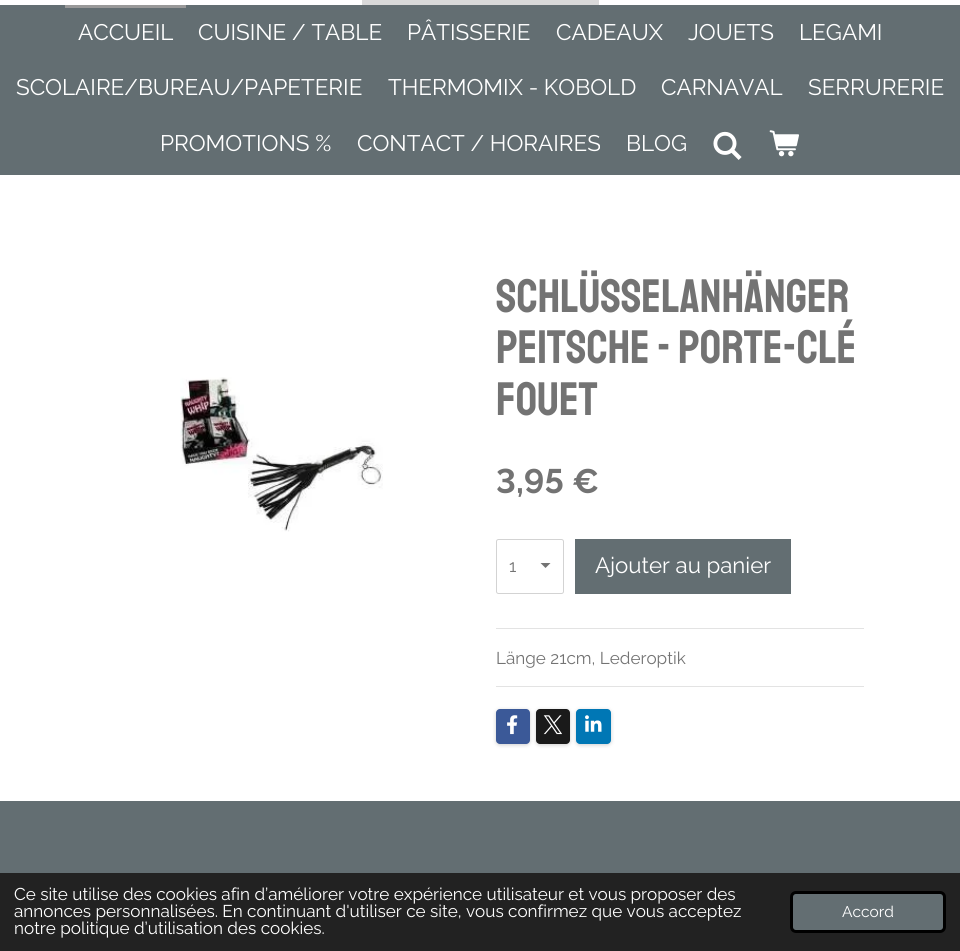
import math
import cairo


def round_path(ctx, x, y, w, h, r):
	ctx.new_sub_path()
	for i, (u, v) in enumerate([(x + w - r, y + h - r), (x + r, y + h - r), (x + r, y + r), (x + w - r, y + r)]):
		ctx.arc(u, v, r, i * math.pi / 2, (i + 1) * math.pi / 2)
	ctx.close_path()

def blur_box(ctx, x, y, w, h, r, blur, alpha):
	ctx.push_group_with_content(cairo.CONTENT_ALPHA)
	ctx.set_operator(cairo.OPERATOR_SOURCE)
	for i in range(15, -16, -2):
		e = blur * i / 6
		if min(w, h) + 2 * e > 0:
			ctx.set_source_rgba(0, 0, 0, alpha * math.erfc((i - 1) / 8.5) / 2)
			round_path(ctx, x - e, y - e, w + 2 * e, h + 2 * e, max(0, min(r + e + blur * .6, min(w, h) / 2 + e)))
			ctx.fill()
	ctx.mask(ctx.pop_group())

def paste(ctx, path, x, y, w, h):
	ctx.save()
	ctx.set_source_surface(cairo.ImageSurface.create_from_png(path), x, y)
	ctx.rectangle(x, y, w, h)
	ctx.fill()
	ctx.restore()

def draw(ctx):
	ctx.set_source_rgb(1, 1, 1)
	ctx.paint()
	ctx.set_source_rgb(0.851, 0.851, 0.851)
	ctx.rectangle(362, 0, 237, 5)
	ctx.fill()
	ctx.set_source_rgb(0.388, 0.431, 0.447)
	ctx.rectangle(0, 5, 960, 170)
	ctx.fill()
	ctx.set_source_rgb(0.6, 0.6, 0.6)
	ctx.rectangle(65, 5, 121, 3)
	ctx.fill()
	ctx.select_font_face('Raleway')
	ctx.set_font_size(22.5)
	ctx.set_source_rgb(1, 1, 1)
	for x, y, s in [
		(78, 40, 'ACCUEIL'),
		(198, 40, 'CUISINE / TABLE'),
		(407, 40, 'PÂTISSERIE'),
		(556, 40, 'CADEAUX'),
		(688, 40, 'JOUETS'),
		(799, 40, 'LEGAMI'),
		(16, 95, 'SCOLAIRE/BUREAU/PAPETERIE'),
		(388, 95, 'THERMOMIX - KOBOLD'),
		(661, 95, 'CARNAVAL'),
		(808, 95, 'SERRURERIE'),
		(160, 151, 'PROMOTIONS %'),
		(357, 151, 'CONTACT / HORAIRES'),
		(626, 151, 'BLOG'),
	]:
		ctx.move_to(x, y)
		ctx.show_text(s)
	paste(ctx, 'media/1.png', 713, 131, 29, 29)
	paste(ctx, 'media/2.png', 769, 130, 30, 27)
	ctx.select_font_face('Staatliches')
	ctx.set_font_size(47)
	ctx.set_source_rgb(0.451, 0.451, 0.451)
	for x, y, s in [
		(496, 312, 'Schlüsselanhänger'),
		(496, 363, 'Peitsche - porte-clé'),
		(496, 415, 'fouet'),
	]:
		ctx.move_to(x, y)
		ctx.show_text(s)
	paste(ctx, 'media/3.png', 180, 377, 203, 155)
	ctx.select_font_face('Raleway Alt', cairo.FONT_SLANT_NORMAL, cairo.FONT_WEIGHT_BOLD)
	ctx.set_font_size(34)
	ctx.move_to(496, 493)
	ctx.show_text('3,95 €')
	ctx.save()
	ctx.rectangle(540, 563, 11, 6)
	ctx.clip()
	ctx.new_path()
	ctx.move_to(545.5, 568)
	ctx.line_to(540, 562.5)
	ctx.line_to(551, 562.5)
	ctx.close_path()
	ctx.fill()
	ctx.restore()
	round_path(ctx, 496.5, 539.5, 67, 54, 2)
	ctx.set_source_rgb(0.827, 0.827, 0.827)
	ctx.set_line_width(1)
	ctx.stroke()
	ctx.select_font_face('Raleway')
	ctx.set_font_size(17.1)
	ctx.set_source_rgb(0.451, 0.451, 0.451)
	ctx.move_to(509, 572)
	ctx.show_text('1')
	ctx.set_source_rgb(0.388, 0.431, 0.447)
	ctx.rectangle(575, 539, 216, 55)
	ctx.fill()
	ctx.set_font_size(22.25)
	ctx.set_source_rgb(1, 1, 1)
	ctx.move_to(595, 573)
	ctx.show_text('Ajouter au panier')
	ctx.set_source_rgb(0.89, 0.89, 0.89)
	ctx.rectangle(496, 628, 368, 1)
	ctx.fill()
	ctx.set_font_size(17.1)
	ctx.set_source_rgb(0.451, 0.451, 0.451)
	ctx.move_to(496, 664)
	ctx.show_text('Länge 21cm, Lederoptik')
	ctx.set_source_rgb(0.89, 0.89, 0.89)
	ctx.rectangle(496, 686, 368, 1)
	ctx.fill()
	ctx.set_source_rgb(0, 0, 0)
	blur_box(ctx, 496, 710, 34, 35, 4, 2, 0.2)
	ctx.set_source_rgb(0.231, 0.349, 0.596)
	round_path(ctx, 496, 709, 34, 35, 4)
	ctx.fill()
	paste(ctx, 'media/4.png', 507, 715, 11, 20)
	ctx.set_source_rgb(0, 0, 0)
	blur_box(ctx, 536, 710, 34, 35, 4, 2, 0.2)
	ctx.set_source_rgb(0.102, 0.102, 0.102)
	round_path(ctx, 536, 709, 34, 35, 4)
	ctx.fill()
	paste(ctx, 'media/5.png', 543, 715, 19, 20)
	ctx.set_source_rgb(0, 0, 0)
	blur_box(ctx, 576, 710, 35, 35, 4, 2, 0.2)
	ctx.set_source_rgb(0, 0.467, 0.71)
	round_path(ctx, 576, 709, 35, 35, 4)
	ctx.fill()
	paste(ctx, 'media/6.png', 585, 715, 17, 17)
	ctx.set_source_rgb(0.388, 0.431, 0.447)
	ctx.rectangle(0, 801, 960, 72)
	ctx.fill()
	ctx.set_source_rgb(0.133, 0.133, 0.133)
	ctx.rectangle(0, 873, 960, 78)
	ctx.fill()
	ctx.set_source_rgb(1, 1, 1)
	for x, y, s in [
		(14, 900, 'Ce site utilise des cookies afin d’améliorer votre expérience utilisateur et vous proposer des'),
		(14, 917, 'annonces personnalisées. En continuant d\'utiliser ce site, vous confirmez que vous acceptez'),
		(14, 934, 'notre politique d’utilisation des cookies.'),
	]:
		ctx.move_to(x, y)
		ctx.show_text(s)
	ctx.set_source_rgb(0.388, 0.431, 0.447)
	round_path(ctx, 791.5, 892.5, 153, 39, 4.5)
	ctx.fill_preserve()
	ctx.set_source_rgb(0, 0, 0)
	ctx.set_line_width(3)
	ctx.stroke()
	ctx.set_font_size(15.5)
	ctx.set_source_rgb(1, 1, 1)
	ctx.move_to(842, 917)
	ctx.show_text('Accord')


surface = cairo.ImageSurface(cairo.FORMAT_RGB24, 960, 951)
ctx = cairo.Context(surface)
options = cairo.FontOptions()
options.set_hint_metrics(cairo.HINT_METRICS_OFF)
options.set_hint_style(cairo.HINT_STYLE_NONE)
ctx.set_font_options(options)
ctx.set_miter_limit(4)
draw(ctx)
surface.write_to_png('image.png')
